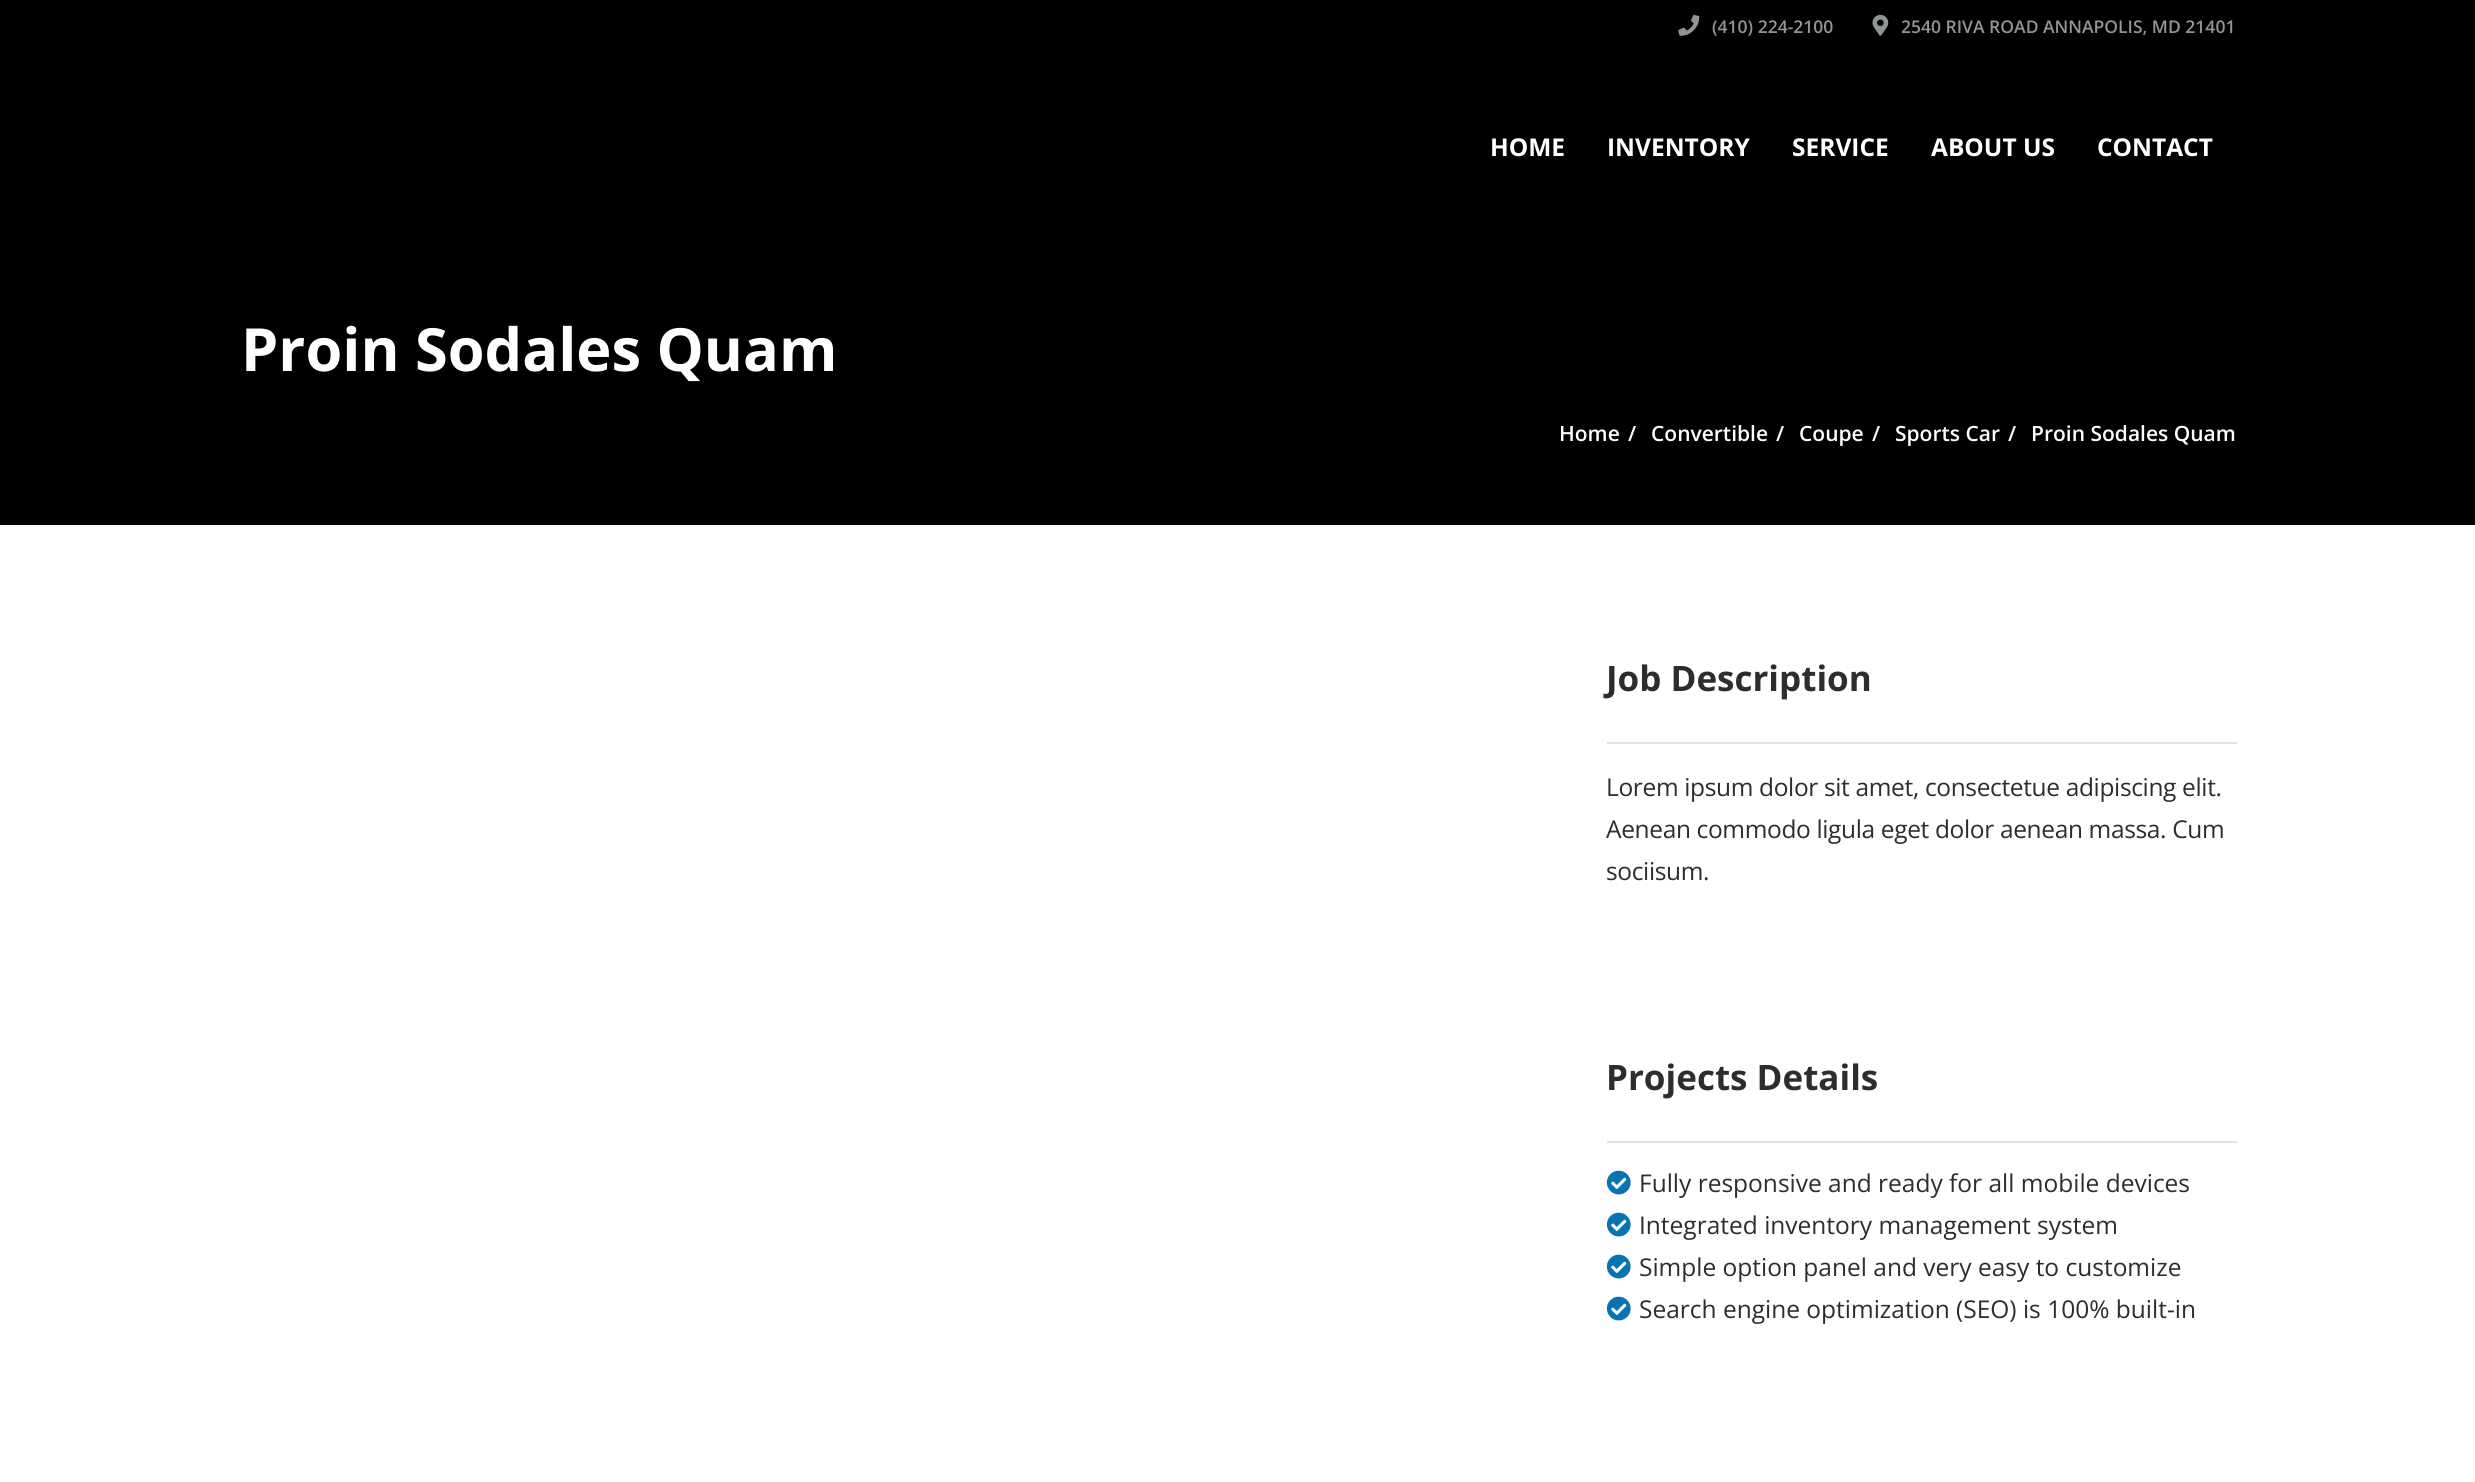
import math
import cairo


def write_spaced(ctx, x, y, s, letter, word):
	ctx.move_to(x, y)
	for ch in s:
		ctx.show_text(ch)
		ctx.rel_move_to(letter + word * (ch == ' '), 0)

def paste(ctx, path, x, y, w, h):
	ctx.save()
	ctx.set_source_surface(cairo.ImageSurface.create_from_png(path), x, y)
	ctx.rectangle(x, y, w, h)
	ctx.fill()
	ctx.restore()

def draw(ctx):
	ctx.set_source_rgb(1, 1, 1)
	ctx.paint()
	ctx.set_source_rgb(0, 0, 0)
	ctx.rectangle(0, 0, 2475, 525)
	ctx.fill()
	paste(ctx, 'media/1.png', 1678, 14, 22, 22)
	ctx.select_font_face('Open Sans SemiBold')
	ctx.set_font_size(17.5)
	ctx.set_source_rgb(0.573, 0.584, 0.588)
	ctx.move_to(1712, 33)
	ctx.show_text('(410) 224-2100')
	paste(ctx, 'media/2.png', 1872, 14, 17, 22)
	ctx.move_to(1901, 33)
	ctx.show_text('2540 RIVA ROAD ANNAPOLIS, MD 21401')
	ctx.select_font_face('Open Sans', cairo.FONT_SLANT_NORMAL, cairo.FONT_WEIGHT_BOLD)
	ctx.set_font_size(24.5)
	ctx.set_source_rgb(1, 1, 1)
	for x, y, s in [
		(1490, 156, 'HOME'),
		(1607, 156, 'INVENTORY'),
		(1792, 156, 'SERVICE'),
		(1931, 156, 'ABOUT US'),
		(2097, 156, 'CONTACT'),
	]:
		ctx.move_to(x, y)
		ctx.show_text(s)
	ctx.set_font_size(59.5)
	ctx.move_to(241, 371)
	ctx.show_text('Proin Sodales Quam')
	ctx.select_font_face('Open Sans SemiBold')
	ctx.set_font_size(21)
	for x, y, s in [
		(1559, 441, 'Home'),
		(1628, 441, '/'),
		(1651, 441, 'Convertible'),
		(1776, 441, '/'),
		(1799, 441, 'Coupe'),
		(1872, 441, '/'),
		(1895, 441, 'Sports Car'),
		(2008, 441, '/'),
		(2031, 441, 'Proin Sodales Quam'),
	]:
		ctx.move_to(x, y)
		ctx.show_text(s)
	ctx.set_source_rgb(0.882, 0.882, 0.882)
	ctx.rectangle(1607, 742, 630, 2)
	ctx.fill()
	ctx.select_font_face('Open Sans', cairo.FONT_SLANT_NORMAL, cairo.FONT_WEIGHT_BOLD)
	ctx.set_font_size(35)
	ctx.set_source_rgb(0.176, 0.176, 0.176)
	ctx.move_to(1606, 691)
	ctx.show_text('Job Description')
	ctx.select_font_face('Open Sans')
	ctx.set_font_size(24.5)
	for x, y, s in [
		(1606, 796, 'Lorem ipsum dolor sit amet, consectetue adipiscing elit.'),
		(1606, 838, 'Aenean commodo ligula eget dolor aenean massa. Cum'),
		(1606, 880, 'sociisum.'),
	]:
		write_spaced(ctx, x, y, s, -0.35, 0)
	ctx.set_source_rgb(0.882, 0.882, 0.882)
	ctx.rectangle(1607, 1141, 630, 2)
	ctx.fill()
	ctx.select_font_face('Open Sans', cairo.FONT_SLANT_NORMAL, cairo.FONT_WEIGHT_BOLD)
	ctx.set_font_size(35)
	ctx.set_source_rgb(0.176, 0.176, 0.176)
	ctx.move_to(1606, 1090)
	ctx.show_text('Projects Details')
	paste(ctx, 'media/3.png', 1606, 1170, 25, 25)
	ctx.select_font_face('Open Sans')
	ctx.set_font_size(24.5)
	ctx.move_to(1639, 1192)
	ctx.show_text('Fully responsive and ready for all mobile devices')
	paste(ctx, 'media/3.png', 1606, 1212, 25, 25)
	ctx.move_to(1639, 1234)
	ctx.show_text('Integrated inventory management system')
	paste(ctx, 'media/3.png', 1606, 1254, 25, 25)
	ctx.move_to(1639, 1276)
	ctx.show_text('Simple option panel and very easy to customize')
	paste(ctx, 'media/3.png', 1606, 1296, 25, 25)
	ctx.move_to(1639, 1318)
	ctx.show_text('Search engine optimization (SEO) is 100% built-in')


surface = cairo.ImageSurface(cairo.FORMAT_RGB24, 2475, 1482)
ctx = cairo.Context(surface)
options = cairo.FontOptions()
options.set_hint_metrics(cairo.HINT_METRICS_OFF)
options.set_hint_style(cairo.HINT_STYLE_NONE)
ctx.set_font_options(options)
ctx.set_miter_limit(4)
draw(ctx)
surface.write_to_png('image.png')
